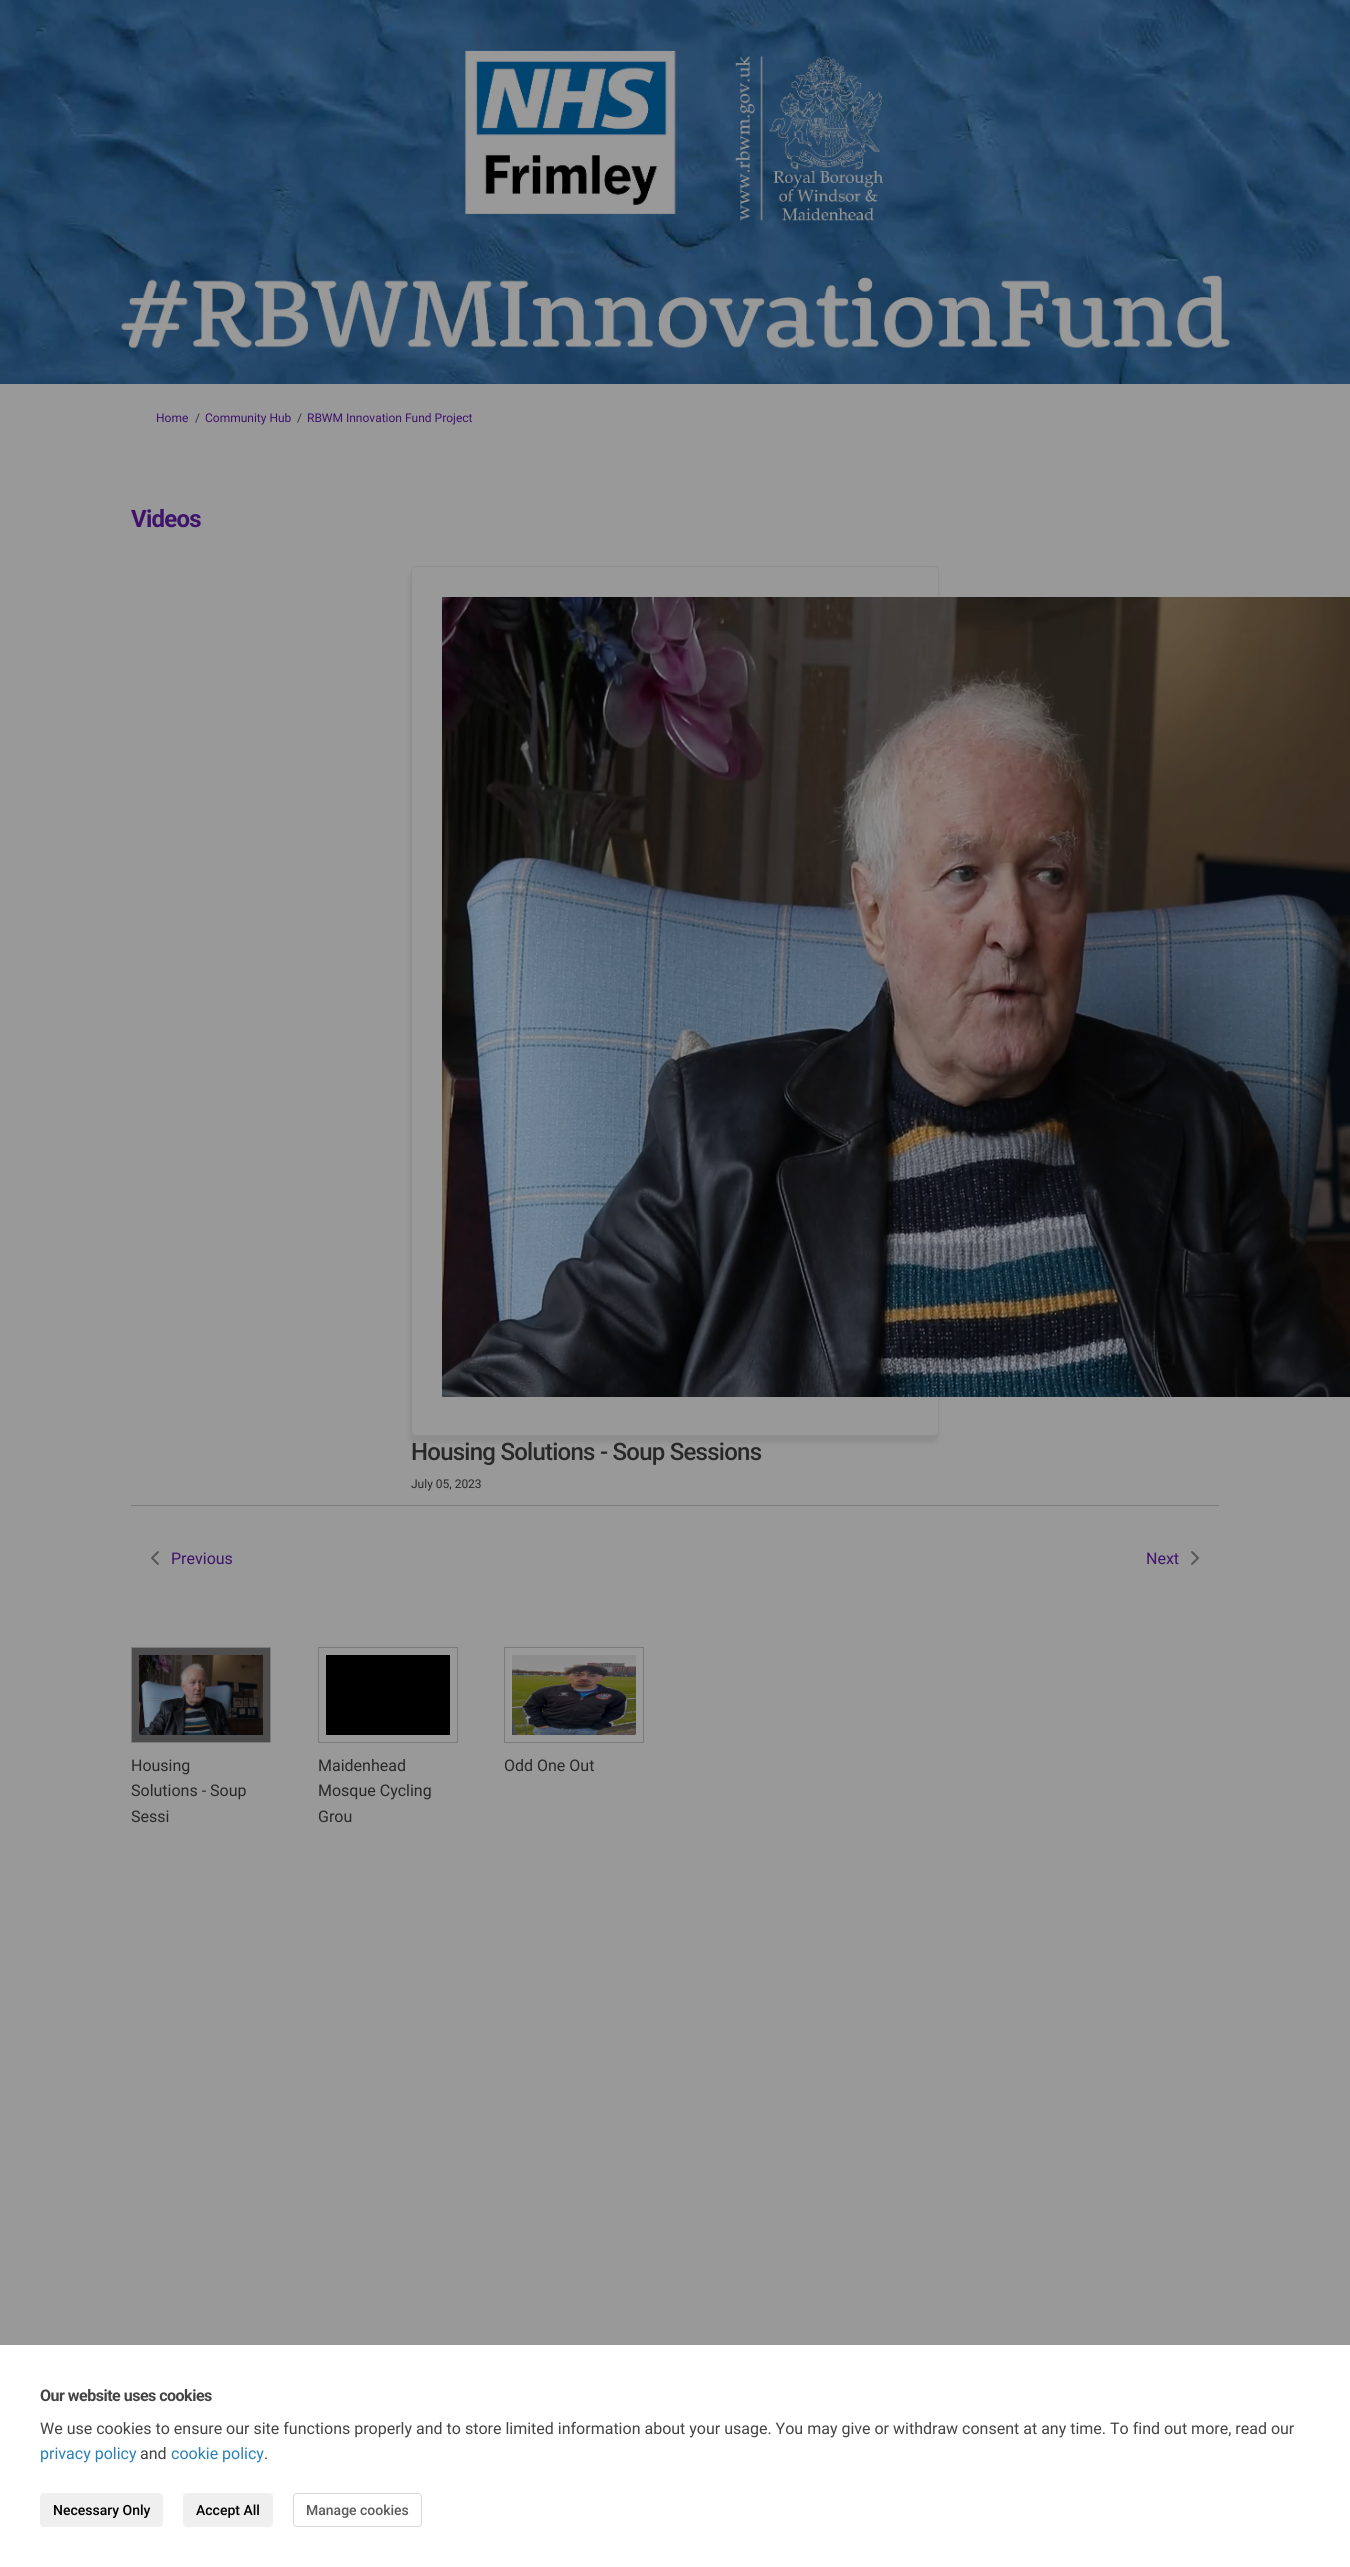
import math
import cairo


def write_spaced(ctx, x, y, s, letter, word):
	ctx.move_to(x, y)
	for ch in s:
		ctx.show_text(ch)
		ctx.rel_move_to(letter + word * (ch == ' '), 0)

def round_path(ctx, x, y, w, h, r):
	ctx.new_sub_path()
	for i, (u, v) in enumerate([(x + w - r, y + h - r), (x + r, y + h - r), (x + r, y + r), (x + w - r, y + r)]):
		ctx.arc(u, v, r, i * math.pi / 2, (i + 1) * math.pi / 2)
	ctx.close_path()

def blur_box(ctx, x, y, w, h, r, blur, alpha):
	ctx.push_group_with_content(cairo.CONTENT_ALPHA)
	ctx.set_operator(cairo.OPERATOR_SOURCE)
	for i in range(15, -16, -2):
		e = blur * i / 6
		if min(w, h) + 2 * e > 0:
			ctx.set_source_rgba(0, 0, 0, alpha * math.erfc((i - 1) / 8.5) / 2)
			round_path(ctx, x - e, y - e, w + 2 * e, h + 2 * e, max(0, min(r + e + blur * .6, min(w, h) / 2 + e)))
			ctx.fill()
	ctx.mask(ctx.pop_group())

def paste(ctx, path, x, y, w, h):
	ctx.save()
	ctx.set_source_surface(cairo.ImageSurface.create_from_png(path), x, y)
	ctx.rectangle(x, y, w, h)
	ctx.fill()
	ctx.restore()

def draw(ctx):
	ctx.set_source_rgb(0.6, 0.6, 0.6)
	ctx.paint()
	paste(ctx, 'media/1.png', 0, 0, 1350, 384)
	ctx.select_font_face('Roboto')
	ctx.set_font_size(12)
	ctx.set_source_rgb(0.243, 0.075, 0.416)
	ctx.move_to(156, 422)
	ctx.show_text('Home')
	ctx.set_source_rgb(0.2, 0.2, 0.2)
	ctx.move_to(195, 422)
	ctx.show_text('/')
	ctx.set_source_rgb(0.243, 0.075, 0.416)
	ctx.move_to(205, 422)
	ctx.show_text('Community Hub')
	ctx.set_source_rgb(0.2, 0.2, 0.2)
	ctx.move_to(297, 422)
	ctx.show_text('/')
	ctx.set_source_rgb(0.243, 0.075, 0.416)
	ctx.move_to(307, 422)
	ctx.show_text('RBWM Innovation Fund Project')
	ctx.select_font_face('Roboto', cairo.FONT_SLANT_NORMAL, cairo.FONT_WEIGHT_BOLD)
	ctx.set_font_size(24)
	write_spaced(ctx, 131, 527, 'Videos', -0.75, 0)
	ctx.set_source_rgb(0.553, 0.553, 0.553)
	blur_box(ctx, 410, 573, 528, 870, 5, 2.5, 1)
	ctx.set_source_rgb(0.6, 0.6, 0.6)
	round_path(ctx, 411.5, 566.5, 527, 869, 4.5)
	ctx.fill_preserve()
	ctx.set_source_rgb(0.561, 0.561, 0.561)
	ctx.set_line_width(1)
	ctx.stroke()
	paste(ctx, 'media/2.png', 442, 597, 908, 800)
	ctx.select_font_face('Roboto Medium')
	ctx.set_source_rgb(0.157, 0.157, 0.157)
	write_spaced(ctx, 411, 1460, 'Housing Solutions - Soup Sessions', -0.75, 0)
	ctx.select_font_face('Roboto')
	ctx.set_font_size(12)
	ctx.move_to(411, 1488)
	ctx.show_text('July 05, 2023')
	ctx.set_source_rgb(0.478, 0.478, 0.478)
	ctx.rectangle(131, 1505, 1088, 1)
	ctx.fill()
	paste(ctx, 'media/3.png', 151, 1551, 8, 14)
	ctx.set_font_size(16)
	ctx.set_source_rgb(0.243, 0.075, 0.416)
	ctx.move_to(171, 1564)
	ctx.show_text('Previous')
	ctx.move_to(1146, 1564)
	ctx.show_text('Next')
	paste(ctx, 'media/4.png', 1191, 1551, 8, 14)
	ctx.set_source_rgb(0.302, 0.302, 0.302)
	ctx.rectangle(131.5, 1647.5, 139, 95)
	ctx.fill_preserve()
	ctx.set_source_rgb(0.478, 0.478, 0.478)
	ctx.stroke()
	paste(ctx, 'media/5.png', 139, 1655, 124, 80)
	ctx.set_source_rgb(0.157, 0.157, 0.157)
	for x, y, s in [
		(131, 1771, 'Housing'),
		(131, 1796, 'Solutions - Soup'),
		(131, 1822, 'Sessi'),
	]:
		ctx.move_to(x, y)
		ctx.show_text(s)
	ctx.rectangle(318.5, 1647.5, 139, 95)
	ctx.set_source_rgb(0.478, 0.478, 0.478)
	ctx.stroke()
	ctx.set_source_rgb(0, 0, 0)
	ctx.rectangle(326, 1655, 124, 80)
	ctx.fill()
	ctx.set_source_rgb(0.157, 0.157, 0.157)
	for x, y, s in [
		(318, 1771, 'Maidenhead'),
		(318, 1796, 'Mosque Cycling'),
		(318, 1822, 'Grou'),
	]:
		ctx.move_to(x, y)
		ctx.show_text(s)
	ctx.rectangle(504.5, 1647.5, 139, 95)
	ctx.set_source_rgb(0.478, 0.478, 0.478)
	ctx.stroke()
	paste(ctx, 'media/6.png', 512, 1655, 124, 80)
	ctx.set_source_rgb(0.157, 0.157, 0.157)
	ctx.move_to(504, 1771)
	ctx.show_text('Odd One Out')
	ctx.set_source_rgb(1, 1, 1)
	ctx.rectangle(0, 2345, 1350, 222)
	ctx.fill()
	ctx.select_font_face('Roboto', cairo.FONT_SLANT_NORMAL, cairo.FONT_WEIGHT_BOLD)
	ctx.set_source_rgb(0.263, 0.263, 0.263)
	write_spaced(ctx, 40, 2401, 'Our website uses cookies', -0.5, 0)
	ctx.select_font_face('Roboto')
	ctx.move_to(40, 2434)
	ctx.show_text('We use cookies to ensure our site functions properly and to store limited information about your usage. You may give or withdraw consent at any time. To find out more, read our')
	ctx.set_source_rgb(0.161, 0.502, 0.725)
	ctx.move_to(40, 2459)
	ctx.show_text('privacy policy')
	ctx.set_source_rgb(0.263, 0.263, 0.263)
	ctx.move_to(140, 2459)
	ctx.show_text('and')
	ctx.set_source_rgb(0.161, 0.502, 0.725)
	ctx.move_to(171, 2459)
	ctx.show_text('cookie policy')
	ctx.set_source_rgb(0.263, 0.263, 0.263)
	ctx.move_to(264, 2459)
	ctx.show_text('.')
	ctx.set_source_rgb(0.937, 0.937, 0.937)
	round_path(ctx, 40, 2493, 123, 34, 4)
	ctx.fill()
	ctx.select_font_face('Roboto Medium')
	ctx.set_font_size(14)
	ctx.set_source_rgb(0, 0, 0)
	ctx.move_to(53, 2515)
	ctx.show_text('Necessary Only')
	ctx.set_source_rgb(0.937, 0.937, 0.937)
	round_path(ctx, 183, 2493, 90, 34, 4)
	ctx.fill()
	ctx.set_source_rgb(0, 0, 0)
	ctx.move_to(196, 2515)
	ctx.show_text('Accept All')
	round_path(ctx, 293.5, 2493.5, 128, 33, 3.5)
	ctx.set_source_rgb(0.851, 0.851, 0.851)
	ctx.stroke()
	ctx.set_source_rgb(0.349, 0.349, 0.349)
	ctx.move_to(306, 2515)
	ctx.show_text('Manage cookies')


surface = cairo.ImageSurface(cairo.FORMAT_RGB24, 1350, 2567)
ctx = cairo.Context(surface)
options = cairo.FontOptions()
options.set_hint_metrics(cairo.HINT_METRICS_OFF)
options.set_hint_style(cairo.HINT_STYLE_NONE)
ctx.set_font_options(options)
ctx.set_miter_limit(4)
draw(ctx)
surface.write_to_png('image.png')
